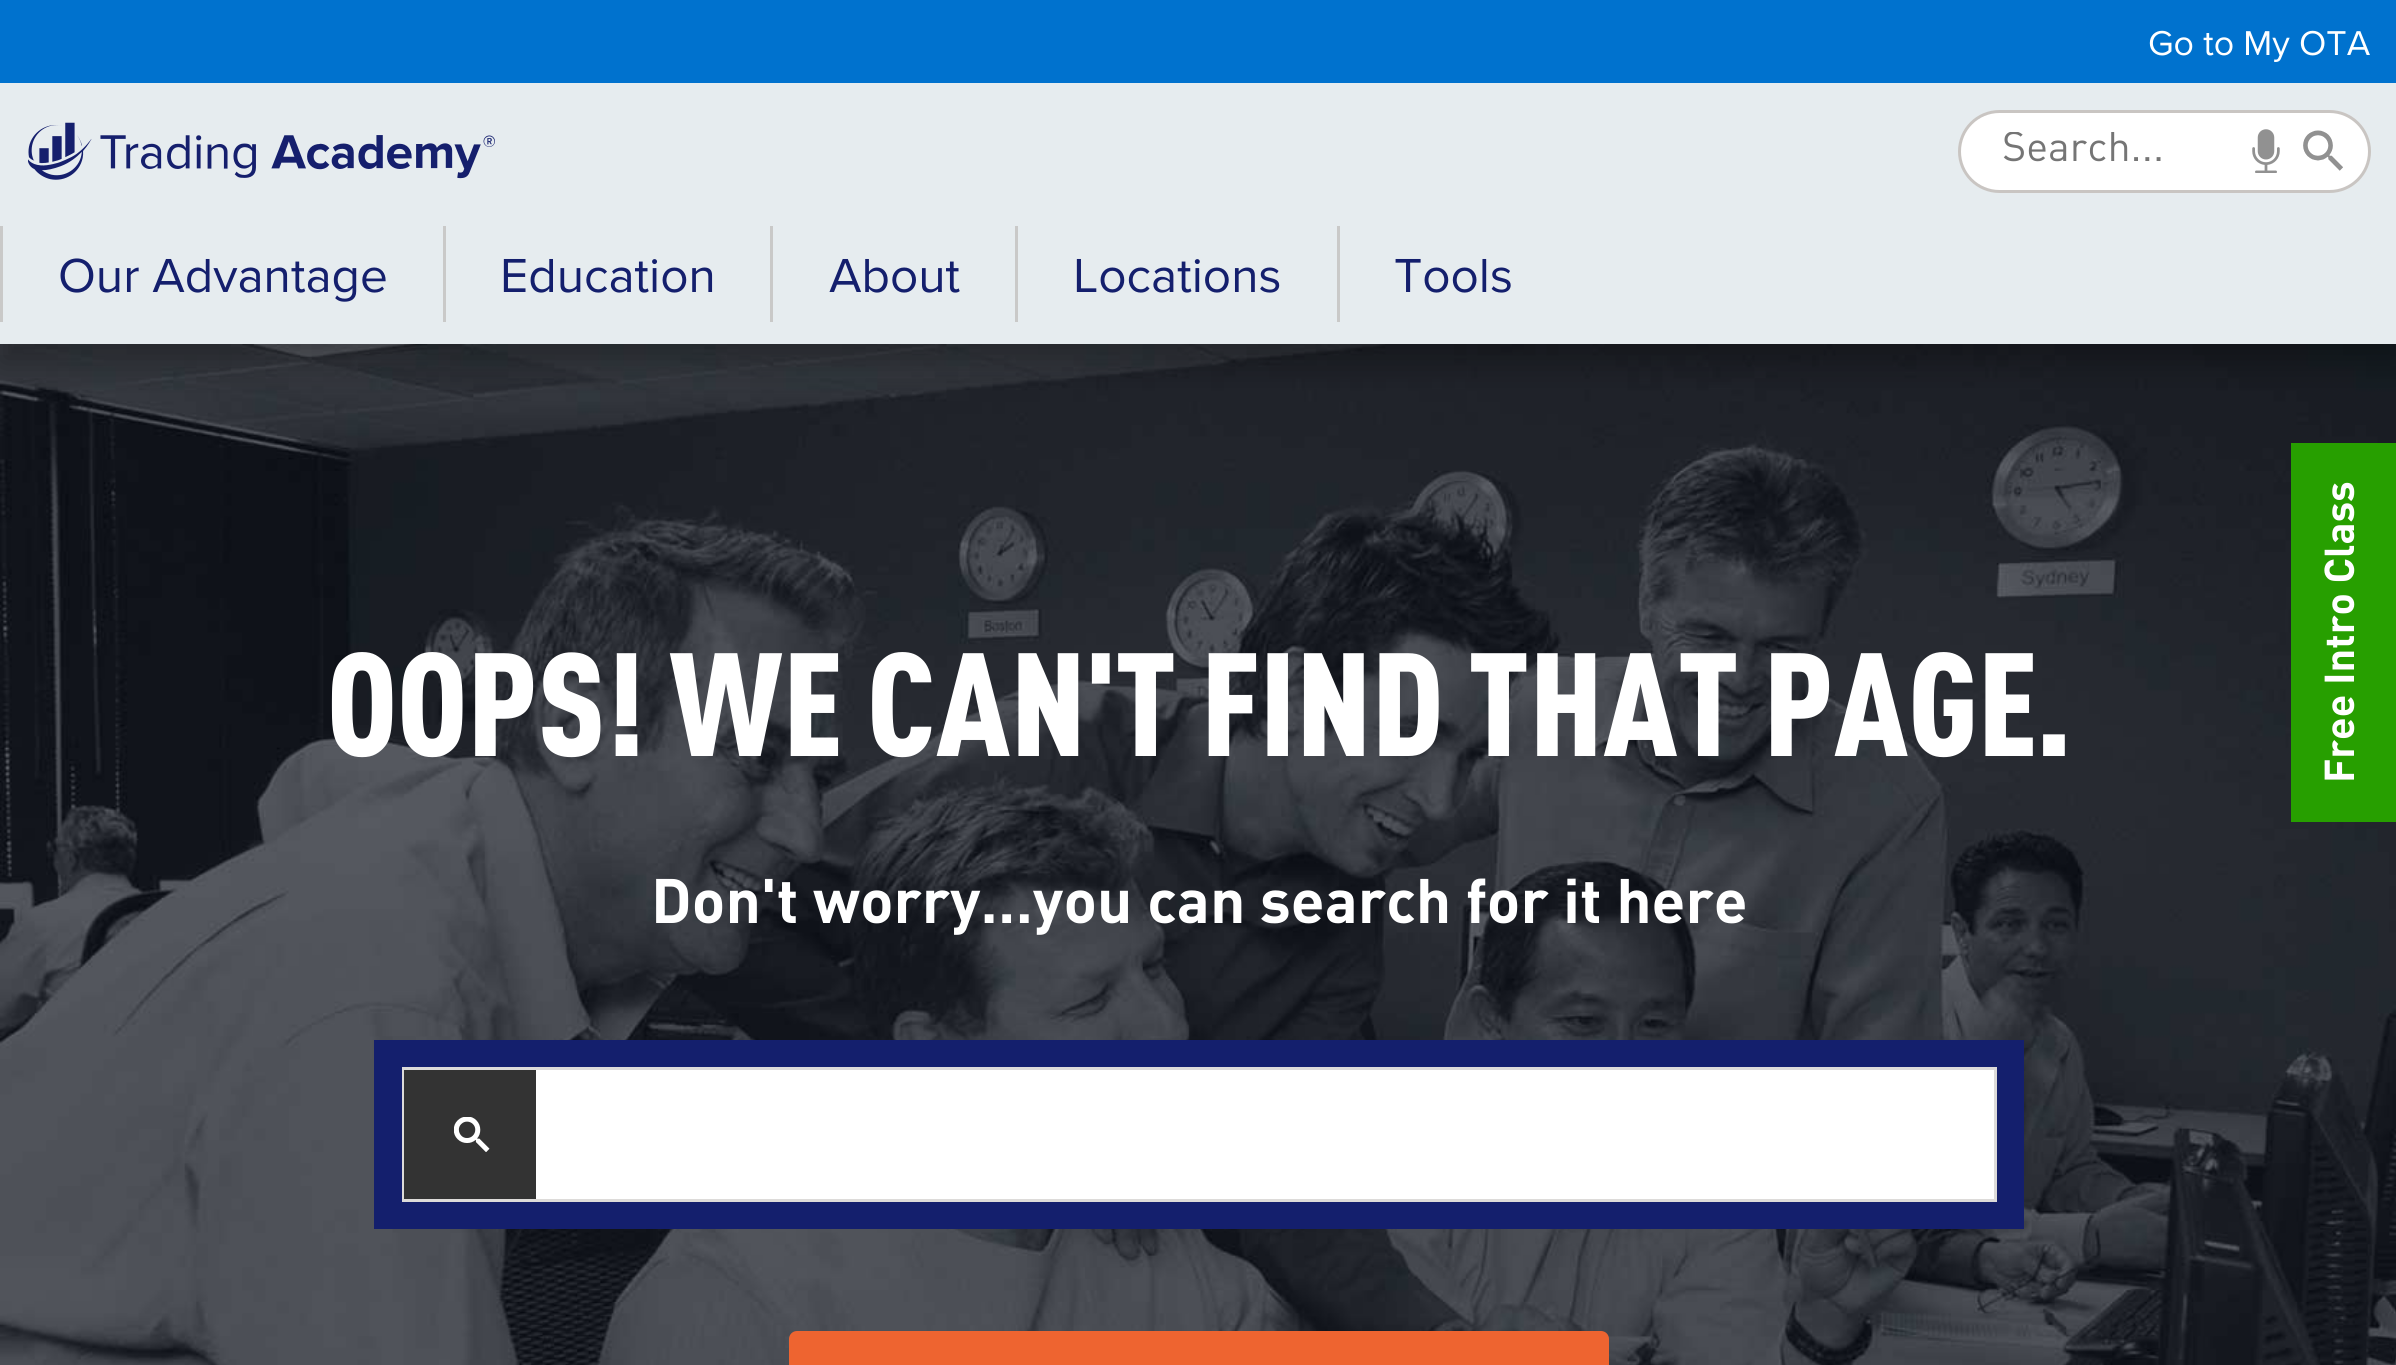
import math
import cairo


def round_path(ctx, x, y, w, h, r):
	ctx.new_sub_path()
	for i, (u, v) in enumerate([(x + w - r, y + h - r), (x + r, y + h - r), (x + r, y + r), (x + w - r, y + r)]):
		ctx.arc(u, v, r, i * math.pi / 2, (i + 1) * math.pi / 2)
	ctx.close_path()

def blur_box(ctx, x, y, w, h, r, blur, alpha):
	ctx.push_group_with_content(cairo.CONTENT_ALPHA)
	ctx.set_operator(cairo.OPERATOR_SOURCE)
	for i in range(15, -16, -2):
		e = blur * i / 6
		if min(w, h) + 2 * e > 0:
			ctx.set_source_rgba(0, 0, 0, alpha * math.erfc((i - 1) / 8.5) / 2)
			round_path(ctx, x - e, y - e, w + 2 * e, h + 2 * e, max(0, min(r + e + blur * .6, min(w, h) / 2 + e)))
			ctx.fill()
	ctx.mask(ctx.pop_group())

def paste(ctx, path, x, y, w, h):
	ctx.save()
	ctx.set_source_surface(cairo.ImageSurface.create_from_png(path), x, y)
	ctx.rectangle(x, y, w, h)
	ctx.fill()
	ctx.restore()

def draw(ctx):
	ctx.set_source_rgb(1, 1, 1)
	ctx.paint()
	paste(ctx, 'media/4.png', 0, 344, 2396, 1021)
	ctx.set_source_rgb(0, 0, 0)
	blur_box(ctx, 0, 19, 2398, 344, 0, 16.5, 0.3)
	ctx.set_source_rgb(0.902, 0.922, 0.937)
	ctx.rectangle(0, 83, 2396, 261)
	ctx.fill()
	ctx.set_source_rgb(0, 0.447, 0.808)
	ctx.rectangle(0, 0, 2396, 83)
	ctx.fill()
	ctx.select_font_face('Proxima Nova')
	ctx.set_font_size(35.75)
	ctx.set_source_rgb(1, 1, 1)
	ctx.move_to(2148, 55)
	ctx.show_text('Go to My OTA')
	paste(ctx, 'media/1.png', 28, 122, 467, 58)
	round_path(ctx, 1959.5, 111.5, 410, 80, 40)
	ctx.fill_preserve()
	ctx.set_source_rgb(0.788, 0.773, 0.761)
	ctx.set_line_width(3)
	ctx.stroke()
	ctx.save()
	ctx.rectangle(1961, 132, 396, 41)
	ctx.clip()
	ctx.select_font_face('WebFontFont')
	ctx.set_font_size(41.25)
	ctx.set_source_rgb(0.459, 0.459, 0.459)
	ctx.move_to(2002, 161)
	ctx.show_text('Search...')
	ctx.restore()
	paste(ctx, 'media/2.png', 2252, 129, 28, 44)
	paste(ctx, 'media/3.png', 2303, 130, 40, 41)
	ctx.set_font_size(49.5)
	ctx.set_source_rgb(0.082, 0.122, 0.427)
	ctx.move_to(58, 292)
	ctx.show_text('Our Advantage')
	ctx.set_source_rgb(0.788, 0.788, 0.784)
	ctx.rectangle(0, 226, 3, 96)
	ctx.fill()
	ctx.set_source_rgb(0.082, 0.122, 0.427)
	ctx.move_to(500, 292)
	ctx.show_text('Education')
	ctx.set_source_rgb(0.788, 0.788, 0.784)
	ctx.rectangle(443, 226, 3, 96)
	ctx.fill()
	ctx.set_source_rgb(0.082, 0.122, 0.427)
	ctx.move_to(829, 292)
	ctx.show_text('About')
	ctx.set_source_rgb(0.788, 0.788, 0.784)
	ctx.rectangle(770, 226, 3, 96)
	ctx.fill()
	ctx.set_source_rgb(0.082, 0.122, 0.427)
	ctx.move_to(1073, 292)
	ctx.show_text('Locations')
	ctx.set_source_rgb(0.788, 0.788, 0.784)
	ctx.rectangle(1015, 226, 3, 96)
	ctx.fill()
	ctx.set_source_rgb(0.082, 0.122, 0.427)
	ctx.move_to(1394, 292)
	ctx.show_text('Tools')
	ctx.set_source_rgb(0.788, 0.788, 0.784)
	ctx.rectangle(1337, 226, 3, 96)
	ctx.fill()
	ctx.select_font_face('WebFontFont Black')
	ctx.set_font_size(144.4)
	ctx.set_source_rgb(1, 1, 1)
	ctx.move_to(327, 756)
	ctx.show_text('OOPS! WE CAN\'T FIND THAT PAGE.')
	ctx.select_font_face('WebFontFont', cairo.FONT_SLANT_NORMAL, cairo.FONT_WEIGHT_BOLD)
	ctx.set_font_size(61.9)
	ctx.move_to(651, 923)
	ctx.show_text('Don\'t worry…you can search for it here')
	ctx.rectangle(536, 1070, 1458, 129)
	ctx.fill()
	ctx.rectangle(388, 1054, 1622, 161)
	ctx.set_source_rgb(0.082, 0.122, 0.427)
	ctx.set_line_width(28)
	ctx.stroke()
	ctx.rectangle(403.5, 1068.5, 1592, 132)
	ctx.set_source_rgb(0.867, 0.859, 0.851)
	ctx.set_line_width(3)
	ctx.stroke()
	ctx.set_source_rgb(0.2, 0.2, 0.2)
	ctx.rectangle(404, 1070, 132, 129)
	ctx.fill()
	paste(ctx, 'media/5.png', 454, 1117, 36, 35)
	ctx.set_source_rgb(0.933, 0.392, 0.188)
	round_path(ctx, 789, 1331, 820, 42, 8)
	ctx.fill()
	ctx.set_source_rgb(0.153, 0.624, 0)
	ctx.rectangle(2291, 443, 105, 379)
	ctx.fill()
	ctx.set_font_size(41.25)
	ctx.set_source_rgb(1, 1, 1)
	ctx.save()
	ctx.translate(2354, 783)
	ctx.rotate(-90 * math.pi / 180)
	ctx.move_to(0, 0)
	ctx.show_text('Free Intro Class')
	ctx.restore()


surface = cairo.ImageSurface(cairo.FORMAT_RGB24, 2396, 1365)
ctx = cairo.Context(surface)
options = cairo.FontOptions()
options.set_hint_metrics(cairo.HINT_METRICS_OFF)
options.set_hint_style(cairo.HINT_STYLE_NONE)
ctx.set_font_options(options)
ctx.set_miter_limit(4)
draw(ctx)
surface.write_to_png('image.png')
